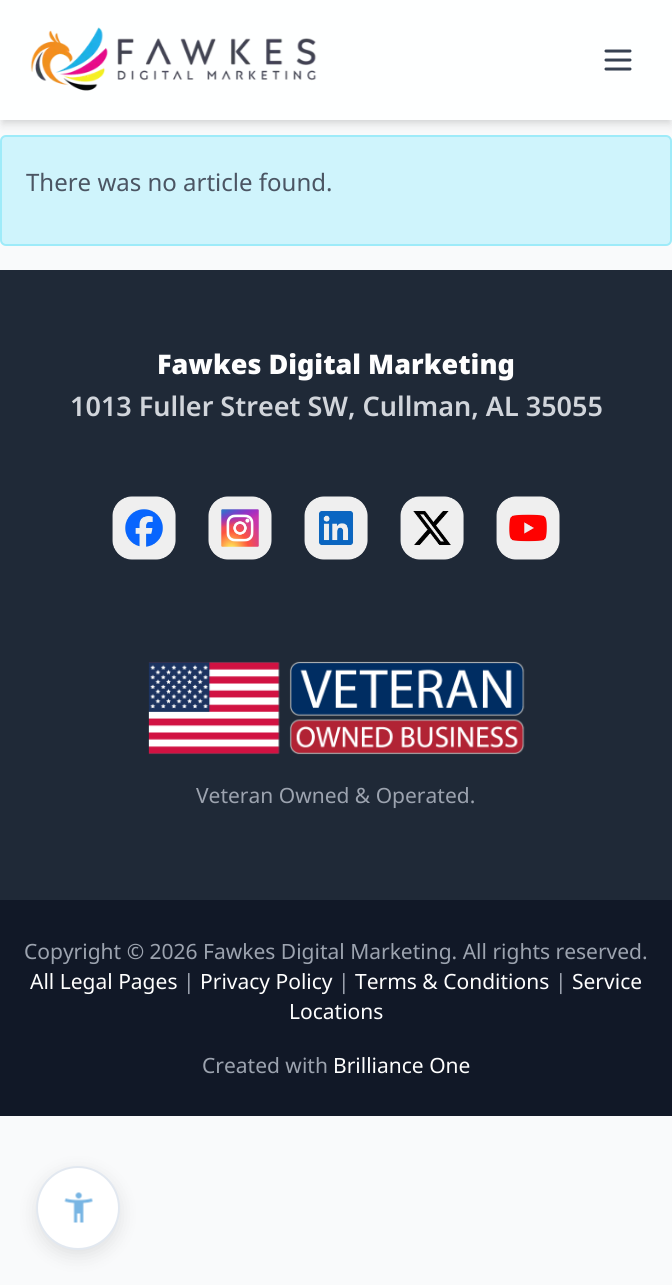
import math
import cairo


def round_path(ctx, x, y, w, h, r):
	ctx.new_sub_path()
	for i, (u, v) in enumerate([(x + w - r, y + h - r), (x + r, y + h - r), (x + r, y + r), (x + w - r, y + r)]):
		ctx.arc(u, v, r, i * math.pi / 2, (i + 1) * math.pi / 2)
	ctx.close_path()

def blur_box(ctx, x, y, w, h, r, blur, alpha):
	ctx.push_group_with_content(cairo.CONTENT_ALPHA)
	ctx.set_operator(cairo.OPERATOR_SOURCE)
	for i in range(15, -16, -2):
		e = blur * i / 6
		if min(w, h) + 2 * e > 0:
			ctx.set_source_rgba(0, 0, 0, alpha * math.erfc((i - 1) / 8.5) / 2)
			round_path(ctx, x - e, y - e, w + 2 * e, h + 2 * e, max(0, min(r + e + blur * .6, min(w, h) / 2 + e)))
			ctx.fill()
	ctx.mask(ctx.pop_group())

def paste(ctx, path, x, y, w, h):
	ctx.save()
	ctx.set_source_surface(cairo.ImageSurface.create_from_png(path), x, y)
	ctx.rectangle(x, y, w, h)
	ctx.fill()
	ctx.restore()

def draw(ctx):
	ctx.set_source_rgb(0.976, 0.98, 0.984)
	ctx.paint()
	ctx.set_source_rgb(0, 0, 0)
	blur_box(ctx, 3, 6, 666, 114, 0, 3, 0.1)
	ctx.set_source_rgb(0.812, 0.957, 0.988)
	round_path(ctx, 1, 136, 670, 109, 5)
	ctx.fill_preserve()
	ctx.set_source_rgb(0.62, 0.918, 0.976)
	ctx.stroke()
	ctx.set_source_rgb(0, 0, 0)
	blur_box(ctx, 2, 8, 669, 117, 0, 4.5, 0.1)
	ctx.set_source_rgb(0.996, 1, 1)
	ctx.rectangle(0, 0, 672, 120)
	ctx.fill()
	paste(ctx, 'media/1.png', 30, 27, 287, 64)
	ctx.new_path()
	ctx.move_to(606, 51)
	ctx.line_to(630, 51)
	ctx.move_to(606, 60)
	ctx.line_to(630, 60)
	ctx.move_to(606, 69)
	ctx.line_to(630, 69)
	ctx.set_source_rgb(0.216, 0.255, 0.318)
	ctx.set_line_width(3)
	ctx.set_line_cap(cairo.LINE_CAP_ROUND)
	ctx.set_line_join(cairo.LINE_JOIN_ROUND)
	ctx.stroke()
	ctx.select_font_face('Noto Sans')
	ctx.set_font_size(24)
	ctx.set_source_rgb(0.294, 0.333, 0.388)
	ctx.move_to(26, 191)
	ctx.show_text('There was no article found.')
	ctx.set_source_rgb(0.122, 0.161, 0.216)
	ctx.rectangle(0, 270, 672, 630)
	ctx.fill()
	ctx.select_font_face('Noto Sans Black')
	ctx.set_font_size(27)
	ctx.set_source_rgb(0.996, 0.996, 0.996)
	ctx.move_to(157, 374)
	ctx.show_text('Fawkes Digital Marketing')
	ctx.select_font_face('Noto Sans SemiBold')
	ctx.set_source_rgb(0.82, 0.835, 0.859)
	ctx.move_to(70, 416)
	ctx.show_text('1013 Fuller Street SW, Cullman, AL 35055')
	paste(ctx, 'media/2.png', 112, 496, 64, 64)
	paste(ctx, 'media/3.png', 208, 496, 64, 64)
	paste(ctx, 'media/4.png', 304, 496, 64, 64)
	paste(ctx, 'media/5.png', 400, 496, 64, 64)
	paste(ctx, 'media/6.png', 496, 496, 64, 64)
	paste(ctx, 'media/7.png', 148, 661, 377, 94)
	ctx.select_font_face('Noto Sans')
	ctx.set_font_size(21)
	ctx.set_source_rgb(0.612, 0.639, 0.686)
	ctx.move_to(196, 803)
	ctx.show_text('Veteran Owned & Operated.')
	ctx.set_source_rgb(0.067, 0.094, 0.153)
	ctx.rectangle(0, 900, 672, 216)
	ctx.fill()
	ctx.set_source_rgb(0.612, 0.639, 0.686)
	ctx.move_to(24, 959)
	ctx.show_text('Copyright © 2026 Fawkes Digital Marketing. All rights reserved.')
	ctx.set_source_rgb(0.996, 0.996, 0.996)
	ctx.move_to(30, 989)
	ctx.show_text('All Legal Pages')
	ctx.set_source_rgb(0.612, 0.639, 0.686)
	ctx.move_to(183, 989)
	ctx.show_text('|')
	ctx.set_source_rgb(0.996, 0.996, 0.996)
	ctx.move_to(200, 989)
	ctx.show_text('Privacy Policy')
	ctx.set_source_rgb(0.612, 0.639, 0.686)
	ctx.move_to(338, 989)
	ctx.show_text('|')
	ctx.set_source_rgb(0.996, 0.996, 0.996)
	ctx.move_to(355, 989)
	ctx.show_text('Terms & Conditions')
	ctx.set_source_rgb(0.612, 0.639, 0.686)
	ctx.move_to(555, 989)
	ctx.show_text('|')
	ctx.set_source_rgb(0.996, 0.996, 0.996)
	ctx.move_to(572, 989)
	ctx.show_text('Service')
	ctx.move_to(289, 1019)
	ctx.show_text('Locations')
	ctx.set_source_rgb(0.612, 0.639, 0.686)
	ctx.move_to(202, 1073)
	ctx.show_text('Created with')
	ctx.set_source_rgb(0.996, 0.996, 0.996)
	ctx.move_to(333, 1073)
	ctx.show_text('Brilliance One')
	ctx.set_source_rgb(0, 0, 0)
	blur_box(ctx, 36, 1172, 84, 84, 42, 9, 0.1)
	ctx.set_source_rgb(1, 1, 1)
	ctx.arc(78, 1208, 41, 0, 2 * math.pi)
	ctx.fill_preserve()
	ctx.set_source_rgb(0.886, 0.91, 0.941)
	ctx.set_line_width(2)
	ctx.set_line_cap(cairo.LINE_CAP_BUTT)
	ctx.set_line_join(cairo.LINE_JOIN_MITER)
	ctx.stroke()
	paste(ctx, 'media/8.png', 64, 1192, 29, 31)


surface = cairo.ImageSurface(cairo.FORMAT_RGB24, 672, 1285)
ctx = cairo.Context(surface)
options = cairo.FontOptions()
options.set_hint_metrics(cairo.HINT_METRICS_OFF)
options.set_hint_style(cairo.HINT_STYLE_NONE)
ctx.set_font_options(options)
ctx.set_miter_limit(4)
draw(ctx)
surface.write_to_png('image.png')
